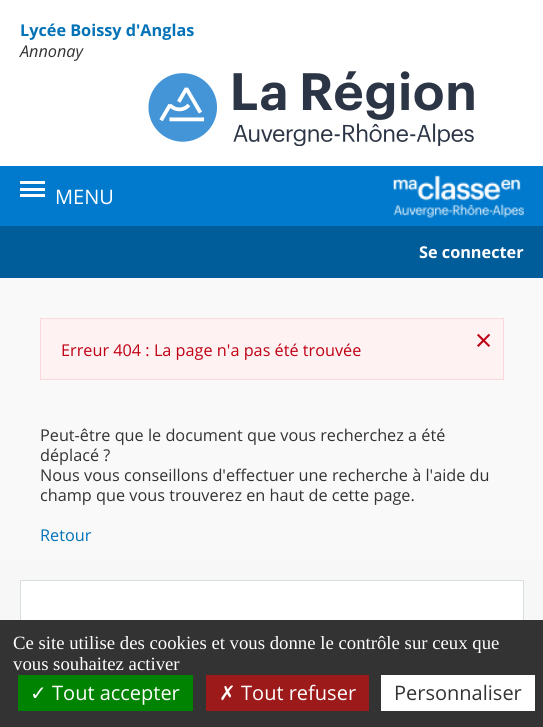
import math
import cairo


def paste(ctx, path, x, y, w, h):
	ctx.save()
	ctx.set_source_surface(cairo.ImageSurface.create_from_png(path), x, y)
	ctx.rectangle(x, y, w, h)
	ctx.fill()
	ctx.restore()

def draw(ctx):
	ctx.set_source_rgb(1, 1, 1)
	ctx.paint()
	ctx.select_font_face('Open Sans', cairo.FONT_SLANT_NORMAL, cairo.FONT_WEIGHT_BOLD)
	ctx.set_font_size(16.25)
	ctx.set_source_rgb(0.012, 0.447, 0.718)
	ctx.move_to(20, 36)
	ctx.show_text('Lycée Boissy d\'Anglas')
	ctx.select_font_face('Open Sans', cairo.FONT_SLANT_ITALIC)
	ctx.set_source_rgb(0.2, 0.2, 0.2)
	ctx.move_to(20, 57)
	ctx.show_text('Annonay')
	paste(ctx, 'media/1.png', 148, 71, 326, 75)
	ctx.set_source_rgb(0.004, 0.478, 0.804)
	ctx.rectangle(0, 166, 543, 60)
	ctx.fill()
	paste(ctx, 'media/2.png', 393, 175, 131, 43)
	ctx.set_source_rgb(1, 1, 1)
	ctx.rectangle(20, 181, 25, 3)
	ctx.rectangle(20, 188, 25, 3)
	ctx.rectangle(20, 194, 25, 3)
	ctx.fill()
	ctx.select_font_face('Open Sans')
	ctx.set_font_size(20)
	ctx.move_to(55, 204)
	ctx.show_text('MENU')
	ctx.set_source_rgb(0.004, 0.361, 0.604)
	ctx.rectangle(0, 226, 543, 52)
	ctx.fill()
	ctx.select_font_face('Open Sans', cairo.FONT_SLANT_NORMAL, cairo.FONT_WEIGHT_BOLD)
	ctx.set_font_size(16.25)
	ctx.set_source_rgb(1, 1, 1)
	ctx.move_to(419, 258)
	ctx.show_text('Se connecter')
	ctx.set_source_rgb(0.976, 0.976, 0.976)
	ctx.rectangle(0, 278, 543, 282)
	ctx.fill()
	ctx.set_source_rgb(1, 0.949, 0.953)
	ctx.rectangle(40.5, 318.5, 463, 61)
	ctx.fill_preserve()
	ctx.set_source_rgb(1, 0.847, 0.863)
	ctx.set_line_width(1)
	ctx.stroke()
	ctx.select_font_face('Open Sans')
	ctx.set_font_size(30)
	ctx.set_source_rgb(0.749, 0, 0.075)
	ctx.move_to(475, 351)
	ctx.show_text('×')
	ctx.set_font_size(16.25)
	ctx.move_to(61, 356)
	ctx.show_text('Erreur 404 : La page n\'a pas été trouvée')
	ctx.set_source_rgb(0.2, 0.2, 0.2)
	for x, y, s in [
		(40, 441, 'Peut-être que le document que vous recherchez a été'),
		(40, 461, 'déplacé ?'),
		(40, 481, 'Nous vous conseillons d\'effectuer une recherche à l\'aide du'),
		(40, 501, 'champ que vous trouverez en haut de cette page.'),
	]:
		ctx.move_to(x, y)
		ctx.show_text(s)
	ctx.set_source_rgb(0.012, 0.447, 0.718)
	ctx.move_to(40, 541)
	ctx.show_text('Retour')
	ctx.set_source_rgb(0.965, 0.965, 0.965)
	ctx.rectangle(0, 560, 543, 60)
	ctx.fill()
	ctx.set_source_rgb(1, 1, 1)
	ctx.rectangle(21, 581, 502, 39)
	ctx.fill()
	ctx.rectangle(20.5, 580.5, 503, 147)
	ctx.set_source_rgb(0.843, 0.871, 0.886)
	ctx.stroke()
	ctx.set_source_rgb(0.2, 0.2, 0.2)
	ctx.rectangle(0, 620, 543, 107)
	ctx.fill()
	ctx.select_font_face('Liberation Serif')
	ctx.set_font_size(18.75)
	ctx.set_source_rgb(1, 1, 1)
	ctx.move_to(13, 649)
	ctx.show_text('Ce site utilise des cookies et vous donne le contrôle sur ceux que')
	ctx.move_to(13, 670)
	ctx.show_text('vous souhaitez activer')
	ctx.set_source_rgb(0, 0.514, 0)
	ctx.rectangle(18, 675, 175, 36)
	ctx.fill()
	ctx.select_font_face('DejaVu Sans')
	ctx.set_font_size(20)
	ctx.set_source_rgb(1, 1, 1)
	ctx.move_to(30, 700)
	ctx.show_text('✓')
	ctx.select_font_face('Open Sans')
	ctx.move_to(52, 700)
	ctx.show_text('Tout accepter')
	ctx.set_source_rgb(0.612, 0.102, 0.102)
	ctx.rectangle(206, 675, 163, 36)
	ctx.fill()
	ctx.select_font_face('DejaVu Sans')
	ctx.set_source_rgb(1, 1, 1)
	ctx.move_to(219, 700)
	ctx.show_text('✗')
	ctx.select_font_face('Open Sans')
	ctx.move_to(241, 700)
	ctx.show_text('Tout refuser')
	ctx.rectangle(381, 675, 154, 36)
	ctx.fill()
	ctx.set_source_rgb(0.2, 0.2, 0.2)
	ctx.move_to(394, 700)
	ctx.show_text('Personnaliser')


surface = cairo.ImageSurface(cairo.FORMAT_RGB24, 543, 727)
ctx = cairo.Context(surface)
options = cairo.FontOptions()
options.set_hint_metrics(cairo.HINT_METRICS_OFF)
options.set_hint_style(cairo.HINT_STYLE_NONE)
ctx.set_font_options(options)
ctx.set_miter_limit(4)
draw(ctx)
surface.write_to_png('image.png')
